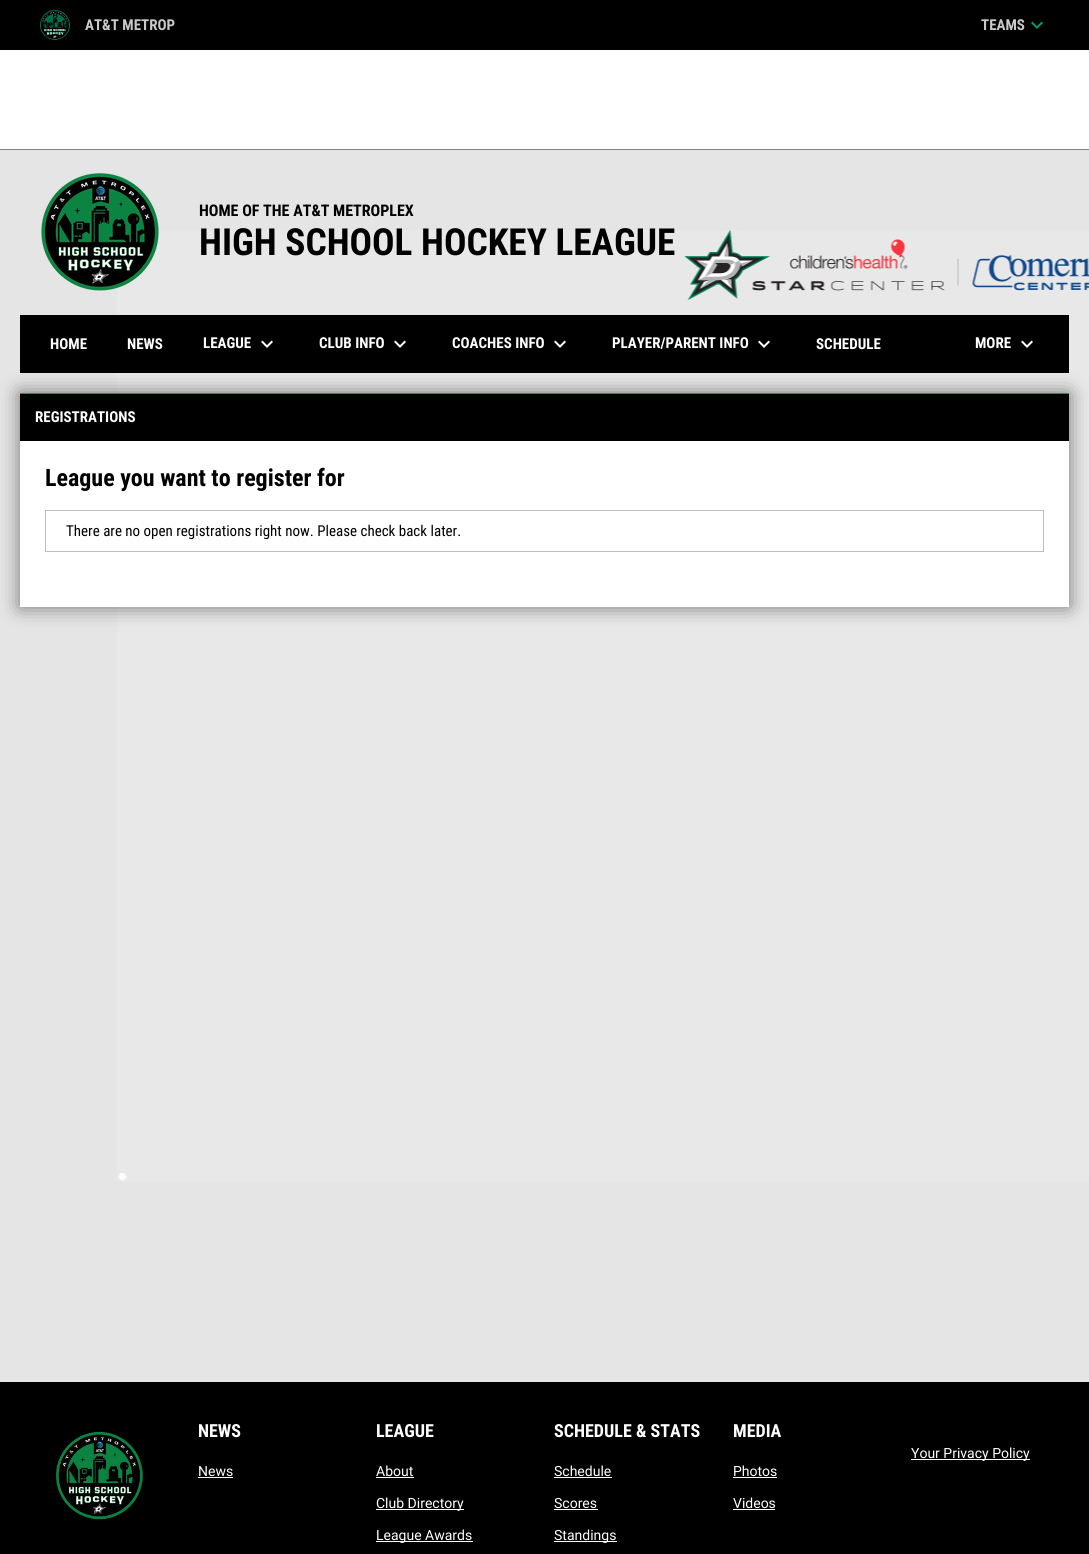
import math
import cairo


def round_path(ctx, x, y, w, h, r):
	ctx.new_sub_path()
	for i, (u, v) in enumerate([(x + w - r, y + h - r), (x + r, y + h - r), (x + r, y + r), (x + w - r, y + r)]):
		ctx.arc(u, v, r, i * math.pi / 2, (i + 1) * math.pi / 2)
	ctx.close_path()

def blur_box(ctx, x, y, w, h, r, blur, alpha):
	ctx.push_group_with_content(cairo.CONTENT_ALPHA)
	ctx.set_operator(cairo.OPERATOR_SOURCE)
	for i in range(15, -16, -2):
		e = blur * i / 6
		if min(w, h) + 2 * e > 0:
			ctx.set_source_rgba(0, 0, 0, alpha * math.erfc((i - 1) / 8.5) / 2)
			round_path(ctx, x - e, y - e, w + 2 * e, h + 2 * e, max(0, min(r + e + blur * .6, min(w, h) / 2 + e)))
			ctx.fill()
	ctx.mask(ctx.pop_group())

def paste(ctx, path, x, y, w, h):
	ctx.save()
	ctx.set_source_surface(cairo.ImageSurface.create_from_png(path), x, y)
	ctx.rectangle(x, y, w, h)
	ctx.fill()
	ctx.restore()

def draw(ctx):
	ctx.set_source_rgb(0.898, 0.898, 0.898)
	ctx.paint()
	ctx.set_source_rgb(0, 0, 0)
	ctx.rectangle(0, 0, 1089, 50)
	ctx.fill()
	paste(ctx, 'media/1.png', 40, 10, 30, 30)
	ctx.select_font_face('Roboto Condensed', cairo.FONT_SLANT_NORMAL, cairo.FONT_WEIGHT_BOLD)
	ctx.set_font_size(15)
	ctx.set_source_rgb(0.792, 0.792, 0.792)
	ctx.move_to(85, 30)
	ctx.show_text('AT&T METROP')
	ctx.move_to(981, 30)
	ctx.show_text('TEAMS')
	paste(ctx, 'media/2.png', 1031, 21, 12, 8)
	ctx.set_source_rgb(1, 1, 1)
	ctx.rectangle(0, 50, 1089, 99)
	ctx.fill()
	ctx.set_source_rgb(0.514, 0.514, 0.514)
	ctx.rectangle(0, 149, 1089, 1)
	ctx.fill()
	paste(ctx, 'media/3.png', 117, 230, 972, 952)
	paste(ctx, 'media/4.png', 41, 173, 118, 118)
	ctx.set_font_size(16)
	ctx.set_source_rgb(0, 0, 0)
	ctx.move_to(199, 216)
	ctx.show_text('HOME OF THE AT&T METROPLEX')
	ctx.set_font_size(37.3)
	ctx.move_to(199, 255)
	ctx.show_text('HIGH SCHOOL HOCKEY LEAGUE')
	ctx.set_source_rgb(0, 0, 0)
	blur_box(ctx, 20, 393, 1049, 214, 0, 10, 0.5)
	ctx.set_source_rgb(0, 0, 0)
	ctx.rectangle(20, 315, 1049, 58)
	ctx.fill()
	ctx.set_font_size(15)
	ctx.set_source_rgb(1, 1, 1)
	for x, y, s in [
		(50, 349, 'HOME'),
		(127, 349, 'NEWS'),
		(203, 348, 'LEAGUE'),
	]:
		ctx.move_to(x, y)
		ctx.show_text(s)
	paste(ctx, 'media/5.png', 261, 340, 12, 8)
	ctx.move_to(319, 348)
	ctx.show_text('CLUB INFO')
	paste(ctx, 'media/5.png', 394, 340, 12, 8)
	ctx.move_to(452, 348)
	ctx.show_text('COACHES INFO')
	paste(ctx, 'media/5.png', 554, 340, 12, 8)
	ctx.move_to(612, 348)
	ctx.show_text('PLAYER/PARENT INFO')
	paste(ctx, 'media/5.png', 758, 340, 12, 8)
	ctx.move_to(816, 349)
	ctx.show_text('SCHEDULE')
	ctx.move_to(975, 348)
	ctx.show_text('MORE')
	paste(ctx, 'media/5.png', 1021, 340, 12, 8)
	ctx.set_source_rgb(0, 0, 0)
	ctx.rectangle(20, 394, 1049, 47)
	ctx.fill()
	ctx.set_source_rgb(0, 0.616, 0.408)
	ctx.rectangle(20, 393, 1049, 1)
	ctx.fill()
	ctx.set_source_rgb(1, 1, 1)
	ctx.move_to(35, 422)
	ctx.show_text('REGISTRATIONS')
	ctx.rectangle(20, 441, 1049, 166)
	ctx.fill()
	ctx.set_font_size(24)
	ctx.set_source_rgb(0, 0, 0)
	ctx.move_to(45, 486)
	ctx.show_text('League you want to register for')
	ctx.set_source_rgb(0.745, 0.745, 0.745)
	ctx.rectangle(45, 510, 999, 1)
	ctx.rectangle(1043, 510, 1, 42)
	ctx.rectangle(45, 551, 999, 1)
	ctx.rectangle(45, 510, 1, 42)
	ctx.fill()
	ctx.select_font_face('Roboto Condensed')
	ctx.set_font_size(15)
	ctx.set_source_rgb(0, 0, 0)
	ctx.move_to(66, 536)
	ctx.show_text('There are no open registrations right now. Please check back later.')
	ctx.rectangle(0, 1382, 1089, 172)
	ctx.fill()
	paste(ctx, 'media/6.png', 56, 1431, 87, 89)
	ctx.select_font_face('Roboto Condensed', cairo.FONT_SLANT_NORMAL, cairo.FONT_WEIGHT_BOLD)
	ctx.set_font_size(18)
	ctx.set_source_rgb(1, 1, 1)
	ctx.move_to(198, 1437)
	ctx.show_text('NEWS')
	ctx.select_font_face('Roboto')
	ctx.set_font_size(14)
	ctx.move_to(198, 1476)
	ctx.show_text('News')
	ctx.rectangle(198, 1477, 35, 1)
	ctx.fill()
	ctx.select_font_face('Roboto Condensed', cairo.FONT_SLANT_NORMAL, cairo.FONT_WEIGHT_BOLD)
	ctx.set_font_size(18)
	ctx.move_to(376, 1437)
	ctx.show_text('LEAGUE')
	ctx.select_font_face('Roboto')
	ctx.set_font_size(14)
	ctx.move_to(376, 1476)
	ctx.show_text('About')
	ctx.rectangle(376, 1477, 38, 1)
	ctx.fill()
	ctx.rectangle(376, 1509, 88, 1)
	ctx.fill()
	ctx.move_to(376, 1508)
	ctx.show_text('Club Directory')
	ctx.rectangle(376, 1541, 97, 1)
	ctx.fill()
	ctx.move_to(376, 1540)
	ctx.show_text('League Awards')
	ctx.select_font_face('Roboto Condensed', cairo.FONT_SLANT_NORMAL, cairo.FONT_WEIGHT_BOLD)
	ctx.set_font_size(18)
	ctx.move_to(554, 1437)
	ctx.show_text('SCHEDULE & STATS')
	ctx.select_font_face('Roboto')
	ctx.set_font_size(14)
	ctx.move_to(554, 1476)
	ctx.show_text('Schedule')
	ctx.rectangle(554, 1477, 58, 1)
	ctx.fill()
	ctx.move_to(554, 1508)
	ctx.show_text('Scores')
	ctx.rectangle(554, 1509, 44, 1)
	ctx.fill()
	ctx.rectangle(554, 1541, 63, 1)
	ctx.fill()
	ctx.move_to(554, 1540)
	ctx.show_text('Standings')
	ctx.select_font_face('Roboto Condensed', cairo.FONT_SLANT_NORMAL, cairo.FONT_WEIGHT_BOLD)
	ctx.set_font_size(18)
	ctx.move_to(733, 1437)
	ctx.show_text('MEDIA')
	ctx.select_font_face('Roboto')
	ctx.set_font_size(14)
	ctx.move_to(733, 1476)
	ctx.show_text('Photos')
	ctx.rectangle(733, 1477, 44, 1)
	ctx.fill()
	ctx.move_to(733, 1508)
	ctx.show_text('Videos')
	ctx.rectangle(733, 1509, 42, 1)
	ctx.fill()
	ctx.rectangle(911, 1459, 119, 1)
	ctx.fill()
	ctx.move_to(911, 1458)
	ctx.show_text('Your Privacy Policy')


surface = cairo.ImageSurface(cairo.FORMAT_RGB24, 1089, 1554)
ctx = cairo.Context(surface)
options = cairo.FontOptions()
options.set_hint_metrics(cairo.HINT_METRICS_OFF)
options.set_hint_style(cairo.HINT_STYLE_NONE)
ctx.set_font_options(options)
ctx.set_miter_limit(4)
draw(ctx)
surface.write_to_png('image.png')
